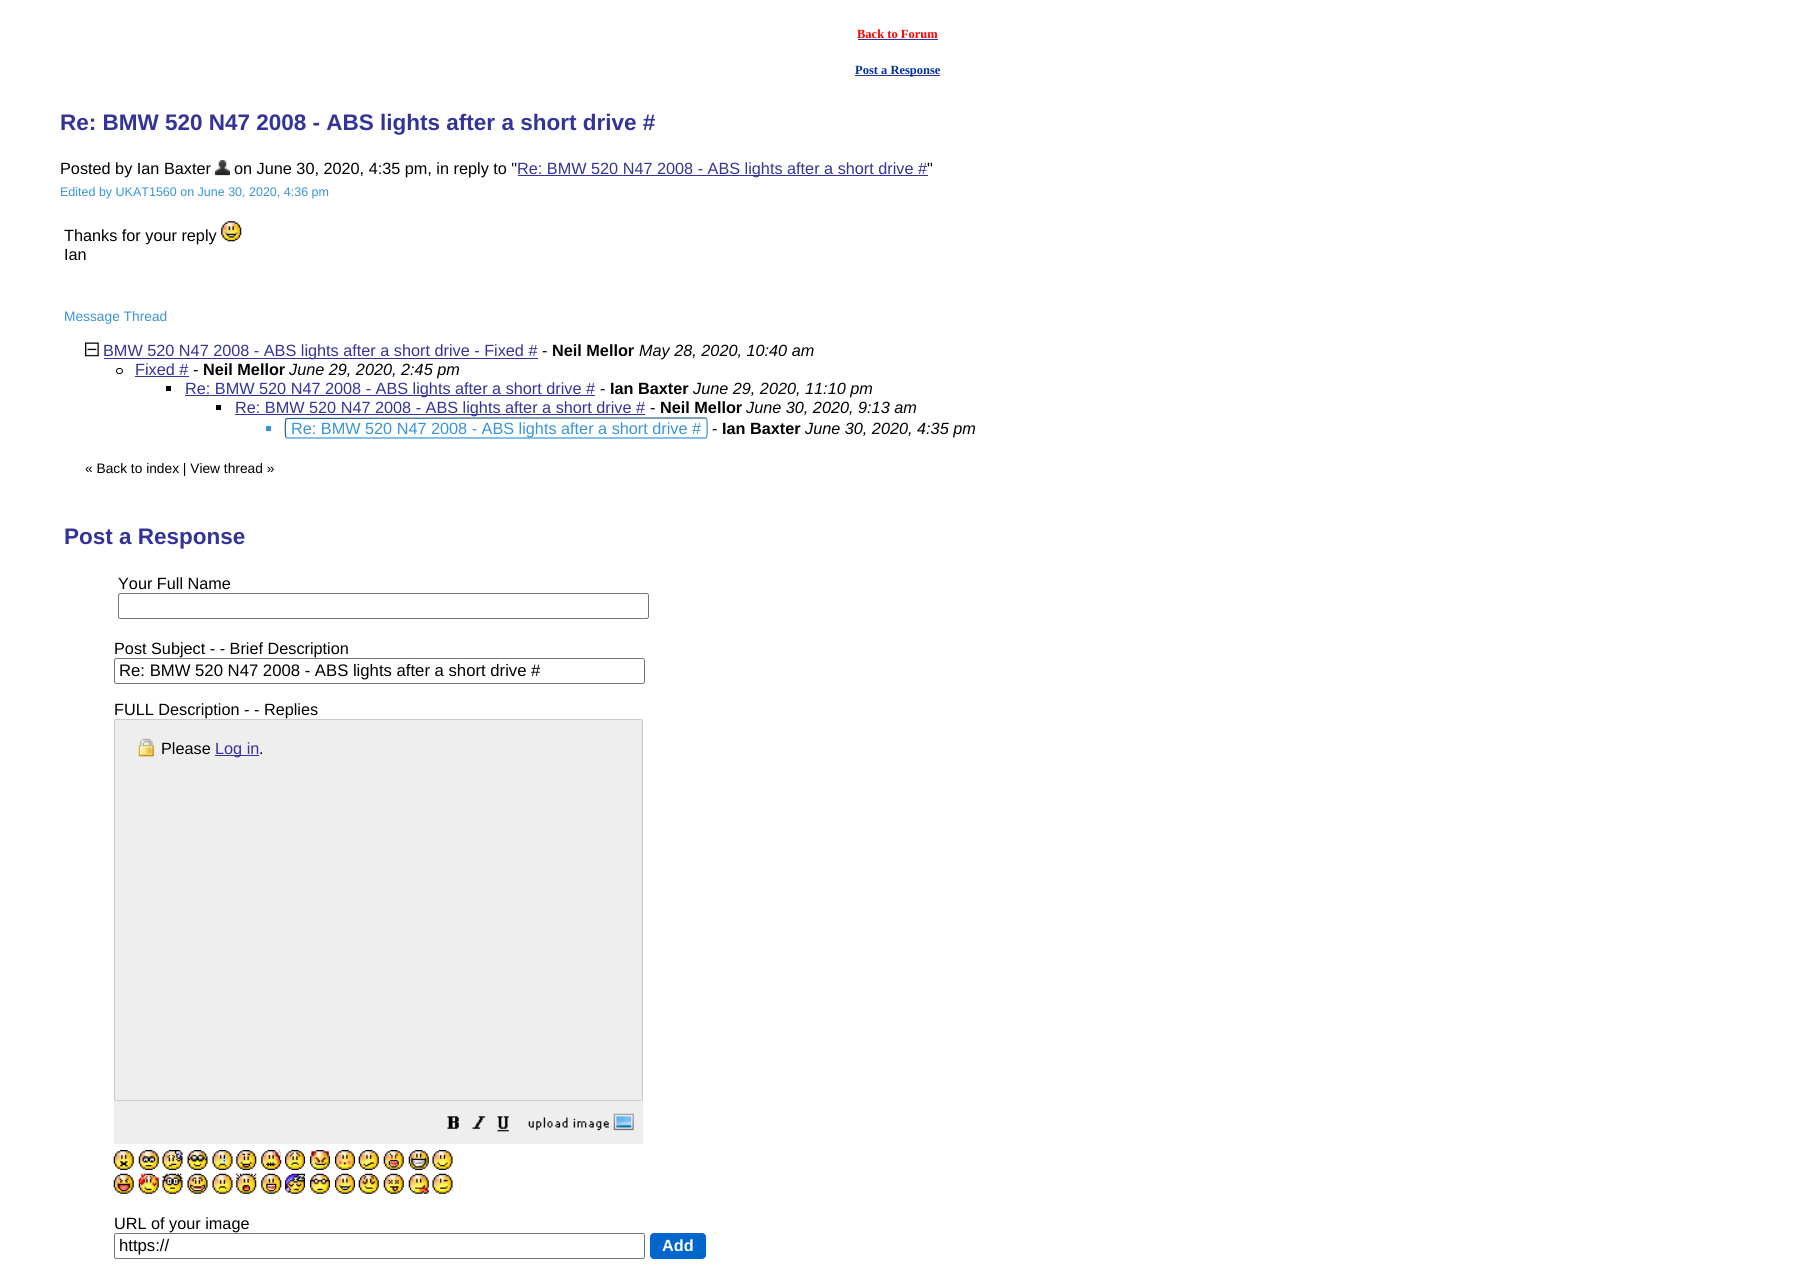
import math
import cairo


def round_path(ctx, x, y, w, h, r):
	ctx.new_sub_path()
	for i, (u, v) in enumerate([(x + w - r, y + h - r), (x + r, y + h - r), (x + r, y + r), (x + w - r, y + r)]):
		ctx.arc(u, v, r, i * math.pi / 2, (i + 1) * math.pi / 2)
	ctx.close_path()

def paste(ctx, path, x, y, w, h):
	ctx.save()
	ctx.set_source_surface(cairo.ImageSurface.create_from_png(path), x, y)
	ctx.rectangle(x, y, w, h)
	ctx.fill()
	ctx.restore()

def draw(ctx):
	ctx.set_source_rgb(1, 1, 1)
	ctx.paint()
	ctx.select_font_face('Liberation Serif', cairo.FONT_SLANT_NORMAL, cairo.FONT_WEIGHT_BOLD)
	ctx.set_font_size(12.5)
	ctx.set_source_rgb(1, 0, 0)
	ctx.move_to(857, 38)
	ctx.show_text('Back to Forum')
	ctx.set_source_rgb(0.2, 0.2, 0.6)
	ctx.rectangle(858, 39, 80, 1)
	ctx.fill()
	ctx.rectangle(855, 75, 85, 1)
	ctx.fill()
	ctx.set_source_rgb(0, 0.2, 0.6)
	ctx.move_to(855, 74)
	ctx.show_text('Post a Response')
	ctx.select_font_face('Liberation Sans', cairo.FONT_SLANT_NORMAL, cairo.FONT_WEIGHT_BOLD)
	ctx.set_font_size(22.5)
	ctx.set_source_rgb(0.2, 0.2, 0.6)
	ctx.move_to(60, 130)
	ctx.show_text('Re: BMW 520 N47 2008 - ABS lights after a short drive #')
	ctx.select_font_face('Liberation Sans')
	ctx.set_font_size(16.25)
	ctx.set_source_rgb(0, 0, 0)
	ctx.move_to(60, 174)
	ctx.show_text('Posted by Ian Baxter')
	paste(ctx, 'media/1.png', 215, 160, 15, 16)
	ctx.move_to(234, 174)
	ctx.show_text('on June 30, 2020, 4:35 pm, in reply to "')
	ctx.set_source_rgb(0.2, 0.2, 0.6)
	ctx.rectangle(518, 175, 410, 1)
	ctx.fill()
	ctx.move_to(517, 174)
	ctx.show_text('Re: BMW 520 N47 2008 - ABS lights after a short drive #')
	ctx.set_source_rgb(0, 0, 0)
	ctx.move_to(927, 174)
	ctx.show_text('"')
	ctx.set_font_size(12.5)
	ctx.set_source_rgb(0.22, 0.576, 0.855)
	ctx.move_to(60, 196)
	ctx.show_text('Edited by UKAT1560 on June 30, 2020, 4:36 pm')
	ctx.set_font_size(16.25)
	ctx.set_source_rgb(0, 0, 0)
	ctx.move_to(64, 241)
	ctx.show_text('Thanks for your reply')
	paste(ctx, 'media/2.png', 221, 221, 21, 21)
	ctx.move_to(64, 260)
	ctx.show_text('Ian')
	ctx.set_font_size(13.75)
	ctx.set_source_rgb(0.22, 0.576, 0.855)
	ctx.move_to(64, 321)
	ctx.show_text('Message Thread')
	paste(ctx, 'media/3.png', 85, 342, 14, 15)
	ctx.set_source_rgb(0.2, 0.2, 0.6)
	ctx.rectangle(104, 358, 434, 1)
	ctx.fill()
	ctx.set_font_size(16.25)
	ctx.move_to(103, 356)
	ctx.show_text('BMW 520 N47 2008 - ABS lights after a short drive - Fixed #')
	ctx.set_source_rgb(0, 0, 0)
	ctx.move_to(542, 356)
	ctx.show_text('-')
	ctx.select_font_face('Liberation Sans', cairo.FONT_SLANT_NORMAL, cairo.FONT_WEIGHT_BOLD)
	ctx.move_to(552, 356)
	ctx.show_text('Neil Mellor')
	ctx.select_font_face('Liberation Sans', cairo.FONT_SLANT_ITALIC)
	ctx.move_to(639, 356)
	ctx.show_text('May 28, 2020, 10:40 am')
	round_path(ctx, 116.5, 368.5, 6, 5, 2.5)
	ctx.set_line_width(1)
	ctx.stroke()
	ctx.select_font_face('Liberation Sans')
	ctx.set_source_rgb(0.2, 0.2, 0.6)
	ctx.move_to(135, 375)
	ctx.show_text('Fixed #')
	ctx.rectangle(135, 376, 54, 1)
	ctx.fill()
	ctx.set_source_rgb(0, 0, 0)
	ctx.move_to(193, 375)
	ctx.show_text('-')
	ctx.select_font_face('Liberation Sans', cairo.FONT_SLANT_NORMAL, cairo.FONT_WEIGHT_BOLD)
	ctx.move_to(203, 375)
	ctx.show_text('Neil Mellor')
	ctx.select_font_face('Liberation Sans', cairo.FONT_SLANT_ITALIC)
	ctx.move_to(289, 375)
	ctx.show_text('June 29, 2020, 2:45 pm')
	ctx.rectangle(166, 386, 5, 5)
	ctx.fill()
	ctx.set_source_rgb(0.2, 0.2, 0.6)
	ctx.rectangle(185, 395, 410, 1)
	ctx.fill()
	ctx.select_font_face('Liberation Sans')
	ctx.move_to(185, 394)
	ctx.show_text('Re: BMW 520 N47 2008 - ABS lights after a short drive #')
	ctx.set_source_rgb(0, 0, 0)
	ctx.move_to(600, 394)
	ctx.show_text('-')
	ctx.select_font_face('Liberation Sans', cairo.FONT_SLANT_NORMAL, cairo.FONT_WEIGHT_BOLD)
	ctx.move_to(610, 394)
	ctx.show_text('Ian Baxter')
	ctx.select_font_face('Liberation Sans', cairo.FONT_SLANT_ITALIC)
	ctx.move_to(693, 394)
	ctx.show_text('June 29, 2020, 11:10 pm')
	ctx.rectangle(216, 405, 5, 5)
	ctx.fill()
	ctx.set_source_rgb(0.2, 0.2, 0.6)
	ctx.rectangle(235, 414, 410, 1)
	ctx.fill()
	ctx.select_font_face('Liberation Sans')
	ctx.move_to(235, 413)
	ctx.show_text('Re: BMW 520 N47 2008 - ABS lights after a short drive #')
	ctx.set_source_rgb(0, 0, 0)
	ctx.move_to(650, 413)
	ctx.show_text('-')
	ctx.select_font_face('Liberation Sans', cairo.FONT_SLANT_NORMAL, cairo.FONT_WEIGHT_BOLD)
	ctx.move_to(660, 413)
	ctx.show_text('Neil Mellor')
	ctx.select_font_face('Liberation Sans', cairo.FONT_SLANT_ITALIC)
	ctx.move_to(746, 413)
	ctx.show_text('June 30, 2020, 9:13 am')
	ctx.set_source_rgb(0.22, 0.576, 0.855)
	ctx.rectangle(266, 426, 5, 5)
	ctx.fill()
	ctx.new_path()
	ctx.move_to(706.5, 418.5)
	ctx.curve_to(707.5, 419.5, 707.5, 436, 706.5, 437.5)
	ctx.line_to(705.5, 438)
	ctx.line_to(496, 438)
	ctx.line_to(287, 438)
	ctx.line_to(286, 437.5)
	ctx.set_line_width(1.2)
	ctx.stroke()
	ctx.new_path()
	ctx.move_to(286, 437.5)
	ctx.curve_to(285, 436.5, 285, 420, 286, 419)
	ctx.line_to(287, 418.5)
	ctx.line_to(496, 418)
	ctx.line_to(705.5, 418)
	ctx.line_to(706.5, 418.5)
	ctx.set_source_rgb(0.145, 0.384, 0.569)
	ctx.stroke()
	ctx.select_font_face('Liberation Sans')
	ctx.set_source_rgb(0.22, 0.576, 0.855)
	ctx.move_to(291, 434)
	ctx.show_text('Re: BMW 520 N47 2008 - ABS lights after a short drive #')
	ctx.set_source_rgb(0, 0, 0)
	ctx.move_to(712, 434)
	ctx.show_text('-')
	ctx.select_font_face('Liberation Sans', cairo.FONT_SLANT_NORMAL, cairo.FONT_WEIGHT_BOLD)
	ctx.move_to(722, 434)
	ctx.show_text('Ian Baxter')
	ctx.select_font_face('Liberation Sans', cairo.FONT_SLANT_ITALIC)
	ctx.move_to(805, 434)
	ctx.show_text('June 30, 2020, 4:35 pm')
	ctx.select_font_face('Liberation Sans')
	ctx.set_font_size(13.75)
	ctx.move_to(85, 473)
	ctx.show_text('« Back to index | View thread »')
	ctx.select_font_face('Liberation Sans', cairo.FONT_SLANT_NORMAL, cairo.FONT_WEIGHT_BOLD)
	ctx.set_font_size(22.5)
	ctx.set_source_rgb(0.2, 0.2, 0.6)
	ctx.move_to(64, 544)
	ctx.show_text('Post a Response')
	ctx.select_font_face('Liberation Sans')
	ctx.set_font_size(16.25)
	ctx.set_source_rgb(0, 0, 0)
	ctx.move_to(118, 589)
	ctx.show_text('Your Full Name')
	round_path(ctx, 118.5, 593.5, 530, 25, 2)
	ctx.set_source_rgb(0.463, 0.463, 0.463)
	ctx.set_line_width(1)
	ctx.stroke()
	ctx.set_source_rgb(0, 0, 0)
	ctx.move_to(114, 654)
	ctx.show_text('Post Subject - - Brief Description')
	round_path(ctx, 114.5, 658.5, 530, 25, 2)
	ctx.set_source_rgb(0.463, 0.463, 0.463)
	ctx.stroke()
	ctx.set_font_size(16.7)
	ctx.set_source_rgb(0, 0, 0)
	ctx.move_to(119, 676)
	ctx.show_text('Re: BMW 520 N47 2008 - ABS lights after a short drive #')
	ctx.set_font_size(16.25)
	ctx.move_to(114, 715)
	ctx.show_text('FULL Description - - Replies')
	ctx.set_source_rgb(0.933, 0.933, 0.933)
	ctx.rectangle(114, 719, 529, 425)
	ctx.fill()
	round_path(ctx, 114.5, 719.5, 528, 381, 2)
	ctx.set_source_rgb(0.792, 0.792, 0.792)
	ctx.stroke()
	paste(ctx, 'media/4.png', 138, 738, 16, 19)
	ctx.set_source_rgb(0, 0, 0)
	ctx.move_to(161, 754)
	ctx.show_text('Please')
	ctx.set_source_rgb(0.2, 0.2, 0.6)
	ctx.rectangle(215, 755, 44, 1)
	ctx.fill()
	ctx.move_to(215, 754)
	ctx.show_text('Log in')
	ctx.set_source_rgb(0, 0, 0)
	ctx.move_to(259, 754)
	ctx.show_text('.')
	paste(ctx, 'media/5.png', 447, 1116, 12, 13)
	paste(ctx, 'media/6.png', 472, 1116, 14, 13)
	paste(ctx, 'media/7.png', 497, 1116, 12, 16)
	paste(ctx, 'media/8.png', 528, 1113, 106, 18)
	paste(ctx, 'media/9.png', 113, 1150, 21, 20)
	paste(ctx, 'media/10.png', 138, 1150, 21, 20)
	paste(ctx, 'media/11.png', 162, 1150, 21, 20)
	paste(ctx, 'media/12.png', 187, 1150, 21, 20)
	paste(ctx, 'media/13.png', 212, 1150, 21, 20)
	paste(ctx, 'media/14.png', 236, 1150, 21, 20)
	paste(ctx, 'media/15.png', 261, 1150, 21, 20)
	paste(ctx, 'media/16.png', 285, 1150, 20, 20)
	paste(ctx, 'media/17.png', 310, 1150, 20, 20)
	paste(ctx, 'media/18.png', 335, 1150, 20, 20)
	paste(ctx, 'media/19.png', 358, 1150, 21, 20)
	paste(ctx, 'media/20.png', 383, 1150, 21, 20)
	paste(ctx, 'media/21.png', 408, 1150, 21, 20)
	paste(ctx, 'media/22.png', 432, 1150, 21, 20)
	paste(ctx, 'media/23.png', 113, 1173, 21, 21)
	paste(ctx, 'media/24.png', 138, 1173, 21, 21)
	paste(ctx, 'media/25.png', 162, 1173, 21, 21)
	paste(ctx, 'media/26.png', 187, 1173, 21, 21)
	paste(ctx, 'media/27.png', 212, 1173, 21, 21)
	paste(ctx, 'media/28.png', 236, 1173, 21, 21)
	paste(ctx, 'media/29.png', 261, 1173, 21, 21)
	paste(ctx, 'media/30.png', 285, 1173, 20, 21)
	paste(ctx, 'media/31.png', 310, 1173, 20, 21)
	paste(ctx, 'media/32.png', 335, 1173, 20, 21)
	paste(ctx, 'media/33.png', 358, 1173, 21, 21)
	paste(ctx, 'media/34.png', 383, 1173, 21, 21)
	paste(ctx, 'media/35.png', 408, 1173, 21, 21)
	paste(ctx, 'media/36.png', 432, 1173, 21, 21)
	ctx.move_to(114, 1229)
	ctx.show_text('URL of your image')
	round_path(ctx, 114.5, 1233.5, 530, 25, 2)
	ctx.set_source_rgb(0.463, 0.463, 0.463)
	ctx.stroke()
	ctx.set_font_size(16.7)
	ctx.set_source_rgb(0, 0, 0)
	ctx.move_to(119, 1251)
	ctx.show_text('https://')
	ctx.set_source_rgb(0, 0.4, 0.8)
	round_path(ctx, 650, 1233, 56, 26, 4)
	ctx.fill()
	ctx.select_font_face('Liberation Sans', cairo.FONT_SLANT_NORMAL, cairo.FONT_WEIGHT_BOLD)
	ctx.set_font_size(16.25)
	ctx.set_source_rgb(1, 1, 1)
	ctx.move_to(662, 1251)
	ctx.show_text('Add')


surface = cairo.ImageSurface(cairo.FORMAT_RGB24, 1795, 1272)
ctx = cairo.Context(surface)
options = cairo.FontOptions()
options.set_hint_metrics(cairo.HINT_METRICS_OFF)
options.set_hint_style(cairo.HINT_STYLE_NONE)
ctx.set_font_options(options)
ctx.set_miter_limit(4)
draw(ctx)
surface.write_to_png('image.png')
